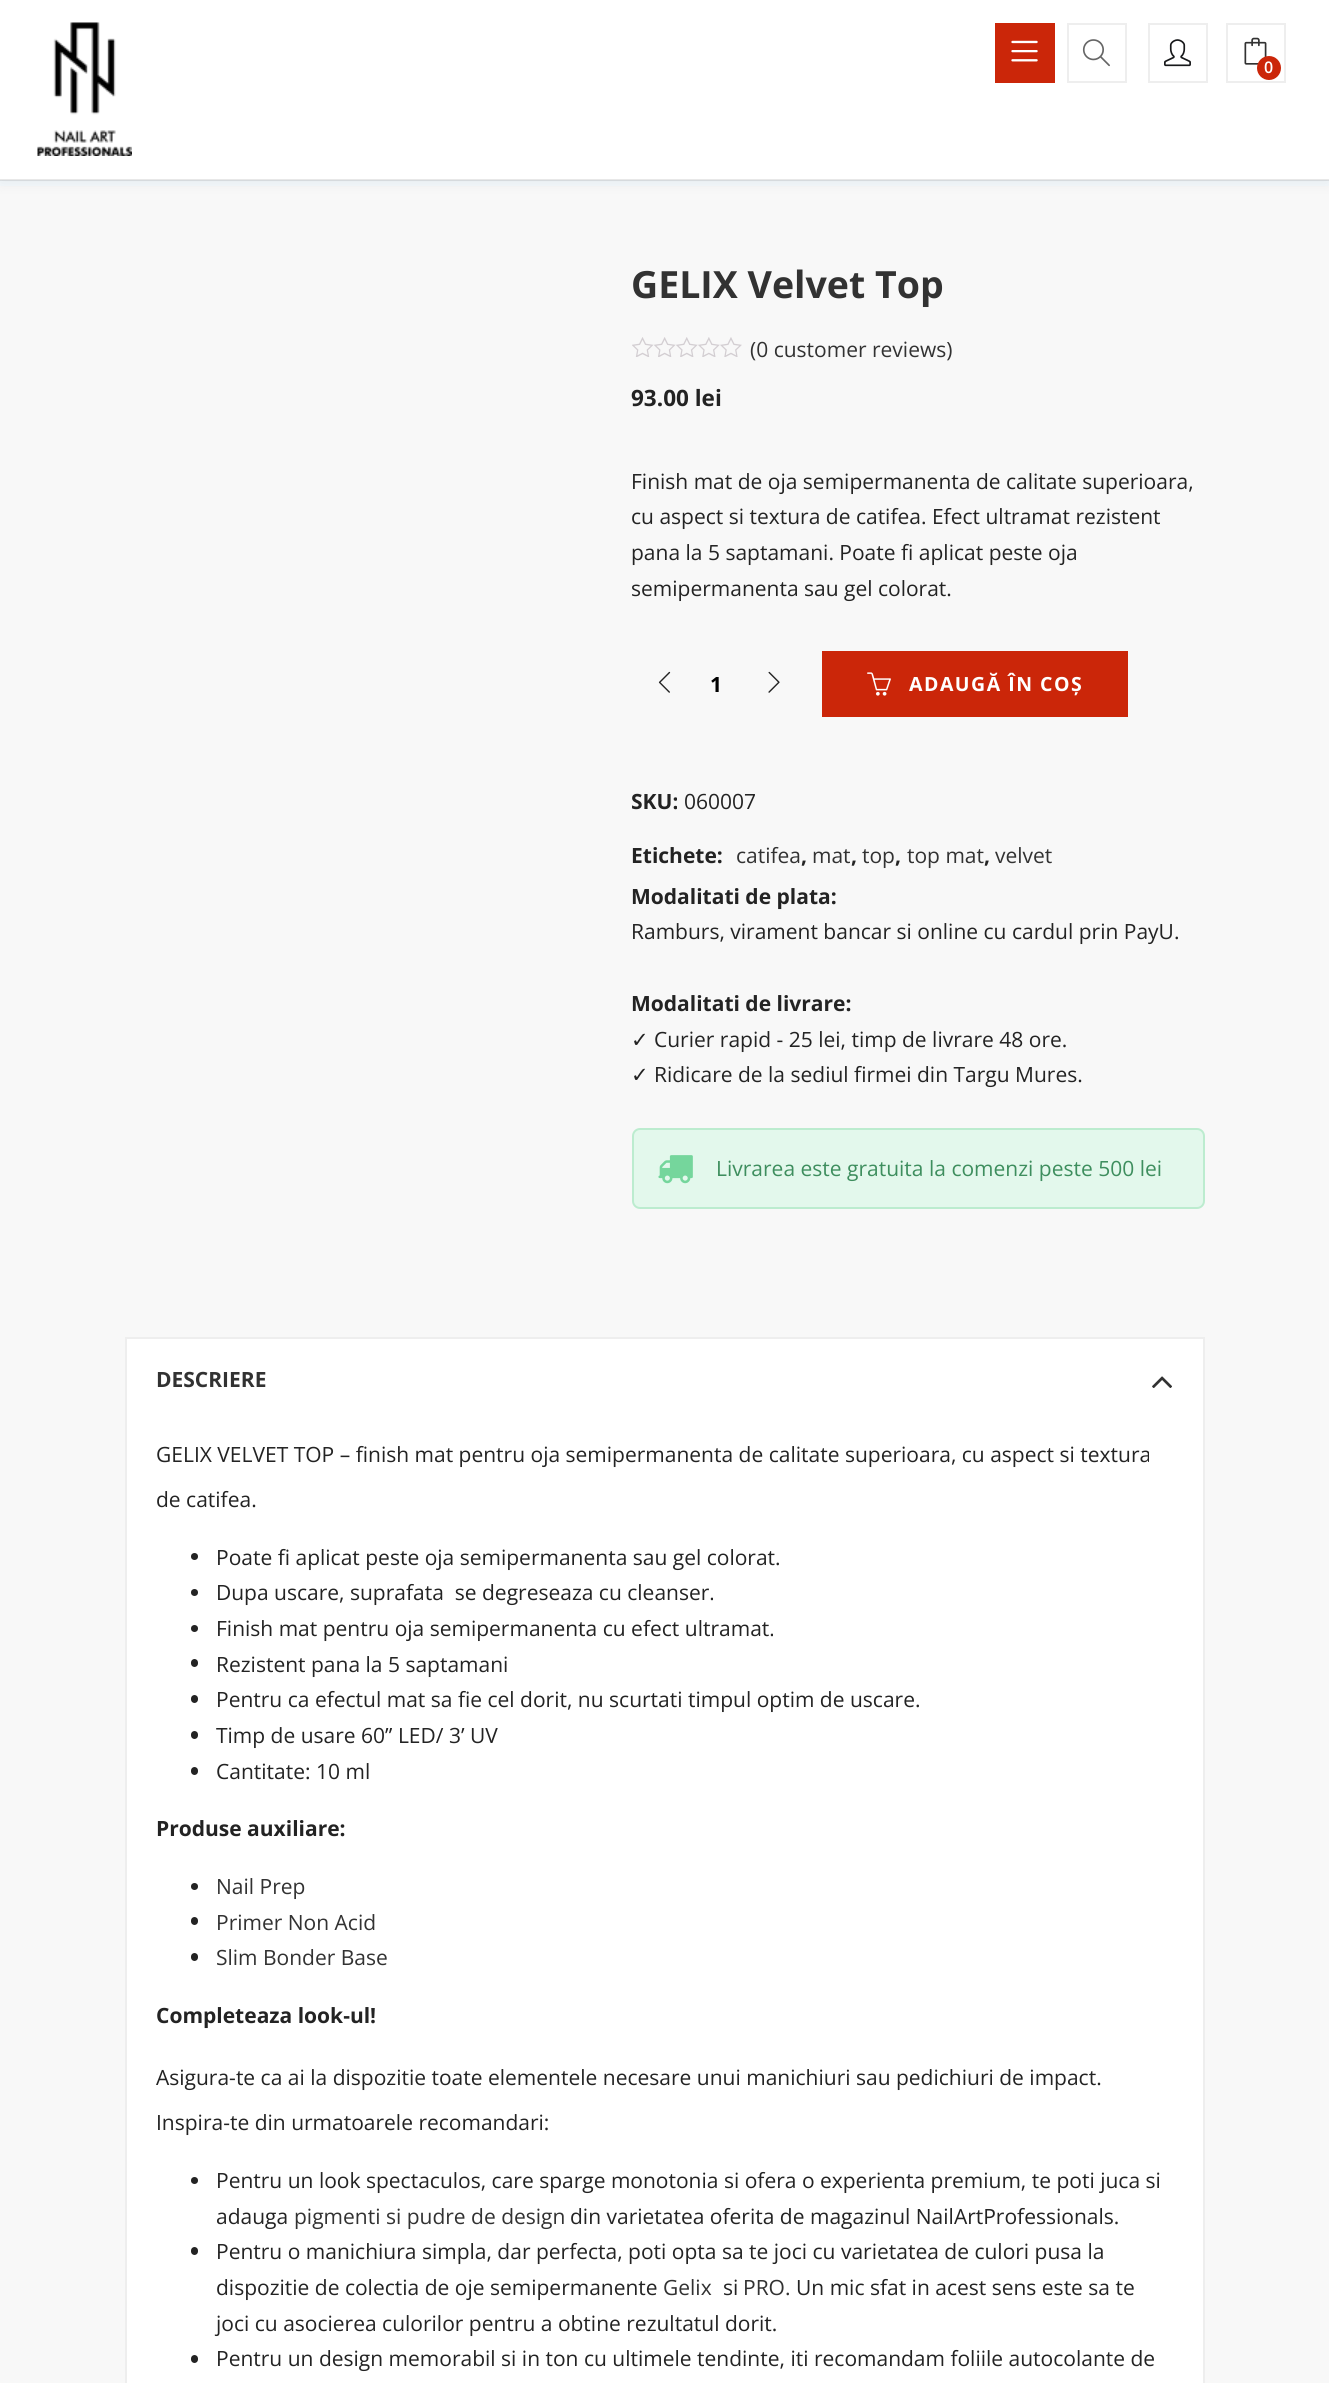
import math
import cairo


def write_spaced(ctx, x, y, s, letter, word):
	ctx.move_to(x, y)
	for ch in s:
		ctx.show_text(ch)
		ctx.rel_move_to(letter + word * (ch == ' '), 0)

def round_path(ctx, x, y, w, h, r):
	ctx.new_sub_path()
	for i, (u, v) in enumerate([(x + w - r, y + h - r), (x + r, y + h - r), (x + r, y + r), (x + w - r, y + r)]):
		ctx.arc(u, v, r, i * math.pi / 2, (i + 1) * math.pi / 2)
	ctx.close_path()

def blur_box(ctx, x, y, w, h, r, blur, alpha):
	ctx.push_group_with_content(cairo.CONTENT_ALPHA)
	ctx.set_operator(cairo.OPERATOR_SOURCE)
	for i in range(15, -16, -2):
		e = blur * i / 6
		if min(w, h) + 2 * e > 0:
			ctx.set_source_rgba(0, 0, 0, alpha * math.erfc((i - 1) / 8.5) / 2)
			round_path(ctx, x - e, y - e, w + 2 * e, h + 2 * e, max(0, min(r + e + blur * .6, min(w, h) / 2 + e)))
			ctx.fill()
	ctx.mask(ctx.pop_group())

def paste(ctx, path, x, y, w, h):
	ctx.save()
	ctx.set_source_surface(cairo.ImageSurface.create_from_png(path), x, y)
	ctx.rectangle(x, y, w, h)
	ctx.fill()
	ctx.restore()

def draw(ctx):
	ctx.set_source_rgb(0.969, 0.969, 0.969)
	ctx.paint()
	ctx.set_source_rgb(0.957, 0.976, 0.988)
	ctx.rectangle(0, 180, 1329, 6)
	ctx.fill()
	ctx.set_source_rgb(0, 0, 0)
	blur_box(ctx, 0, 3, 1329, 180, 0, 7.5, 0.06)
	ctx.set_source_rgb(1, 1, 1)
	ctx.rectangle(0, 0, 1329, 180)
	ctx.fill()
	ctx.set_source_rgba(0, 0, 0, 0.09)
	ctx.rectangle(0, 179, 1329, 2)
	ctx.fill()
	paste(ctx, 'media/1.png', 37, 22, 95, 134)
	ctx.set_source_rgb(0.796, 0.149, 0.039)
	ctx.rectangle(995, 23, 60, 60)
	ctx.fill()
	paste(ctx, 'media/2.png', 1011, 40, 27, 22)
	ctx.rectangle(1068, 24, 58, 58)
	ctx.set_source_rgb(0.933, 0.933, 0.933)
	ctx.stroke()
	paste(ctx, 'media/3.png', 1082, 39, 28, 28)
	ctx.rectangle(1149, 24, 58, 58)
	ctx.stroke()
	paste(ctx, 'media/4.png', 1164, 39, 27, 28)
	ctx.rectangle(1227, 24, 58, 58)
	ctx.stroke()
	paste(ctx, 'media/5.png', 1244, 37, 23, 28)
	ctx.set_source_rgb(0.796, 0.149, 0.039)
	ctx.arc(1269, 68, 12, 0, 2 * math.pi)
	ctx.fill()
	ctx.select_font_face('Open Sans SemiBold')
	ctx.set_font_size(16)
	ctx.set_source_rgb(1, 1, 1)
	ctx.move_to(1264, 73)
	ctx.show_text('0')
	ctx.select_font_face('Open Sans', cairo.FONT_SLANT_NORMAL, cairo.FONT_WEIGHT_BOLD)
	ctx.set_font_size(37.5)
	ctx.set_source_rgb(0.196, 0.196, 0.196)
	ctx.move_to(631, 298)
	ctx.show_text('GELIX Velvet Top')
	paste(ctx, 'media/6.png', 632, 337, 110, 20)
	ctx.select_font_face('Open Sans')
	ctx.set_font_size(21)
	ctx.move_to(750, 357)
	ctx.show_text('(0 customer reviews)')
	ctx.select_font_face('Open Sans', cairo.FONT_SLANT_NORMAL, cairo.FONT_WEIGHT_BOLD)
	ctx.set_font_size(22.5)
	ctx.set_source_rgb(0.137, 0.137, 0.137)
	ctx.move_to(631, 406)
	ctx.show_text('93.00 lei')
	ctx.select_font_face('Open Sans')
	ctx.set_font_size(21)
	for x, y, s in [
		(631, 489, 'Finish mat de oja semipermanenta de calitate superioara,'),
		(631, 524, 'cu aspect si textura de catifea. Efect ultramat rezistent'),
		(631, 560, 'pana la 5 saptamani. Poate fi aplicat peste oja'),
		(631, 596, 'semipermanenta sau gel colorat.'),
	]:
		ctx.move_to(x, y)
		ctx.show_text(s)
	paste(ctx, 'media/7.png', 658, 671, 13, 22)
	ctx.select_font_face('Open Sans', cairo.FONT_SLANT_NORMAL, cairo.FONT_WEIGHT_BOLD)
	ctx.set_source_rgb(0, 0, 0)
	ctx.move_to(710, 692)
	ctx.show_text('1')
	paste(ctx, 'media/8.png', 768, 671, 12, 22)
	ctx.set_source_rgb(0.796, 0.149, 0.039)
	ctx.rectangle(822, 651, 306, 66)
	ctx.fill()
	paste(ctx, 'media/9.png', 867, 672, 24, 24)
	ctx.set_font_size(19.5)
	ctx.set_source_rgb(1, 1, 1)
	write_spaced(ctx, 909, 691, 'ADAUGĂ ÎN COȘ', 1.5, 0)
	ctx.save()
	ctx.rectangle(632, 779, 573, 52)
	ctx.clip()
	ctx.set_font_size(21)
	ctx.set_source_rgb(0.137, 0.137, 0.137)
	ctx.move_to(631, 809)
	ctx.show_text('SKU:')
	ctx.restore()
	ctx.select_font_face('Open Sans')
	ctx.set_font_size(21)
	ctx.set_source_rgb(0.137, 0.137, 0.137)
	ctx.move_to(684, 809)
	ctx.show_text('060007')
	ctx.select_font_face('Open Sans', cairo.FONT_SLANT_NORMAL, cairo.FONT_WEIGHT_BOLD)
	ctx.move_to(631, 863)
	ctx.show_text('Etichete:')
	ctx.select_font_face('Open Sans')
	ctx.set_source_rgb(0.196, 0.196, 0.196)
	ctx.move_to(736, 863)
	ctx.show_text('catifea')
	ctx.select_font_face('Open Sans', cairo.FONT_SLANT_NORMAL, cairo.FONT_WEIGHT_BOLD)
	ctx.set_source_rgb(0.137, 0.137, 0.137)
	ctx.move_to(801, 863)
	ctx.show_text(',')
	ctx.select_font_face('Open Sans')
	ctx.set_source_rgb(0.196, 0.196, 0.196)
	ctx.move_to(812, 863)
	ctx.show_text('mat')
	ctx.select_font_face('Open Sans', cairo.FONT_SLANT_NORMAL, cairo.FONT_WEIGHT_BOLD)
	ctx.set_source_rgb(0.137, 0.137, 0.137)
	ctx.move_to(851, 863)
	ctx.show_text(',')
	ctx.select_font_face('Open Sans')
	ctx.set_source_rgb(0.196, 0.196, 0.196)
	ctx.move_to(862, 863)
	ctx.show_text('top')
	ctx.select_font_face('Open Sans', cairo.FONT_SLANT_NORMAL, cairo.FONT_WEIGHT_BOLD)
	ctx.set_source_rgb(0.137, 0.137, 0.137)
	ctx.move_to(895, 863)
	ctx.show_text(',')
	ctx.select_font_face('Open Sans')
	ctx.set_source_rgb(0.196, 0.196, 0.196)
	ctx.move_to(907, 863)
	ctx.show_text('top mat')
	ctx.select_font_face('Open Sans', cairo.FONT_SLANT_NORMAL, cairo.FONT_WEIGHT_BOLD)
	ctx.set_source_rgb(0.137, 0.137, 0.137)
	ctx.move_to(984, 863)
	ctx.show_text(',')
	ctx.select_font_face('Open Sans')
	ctx.set_source_rgb(0.196, 0.196, 0.196)
	ctx.move_to(995, 863)
	ctx.show_text('velvet')
	ctx.select_font_face('Open Sans', cairo.FONT_SLANT_NORMAL, cairo.FONT_WEIGHT_BOLD)
	ctx.set_source_rgb(0.137, 0.137, 0.137)
	ctx.move_to(631, 904)
	ctx.show_text('Modalitati de plata:')
	ctx.select_font_face('Open Sans')
	ctx.move_to(631, 939)
	ctx.show_text('Ramburs, virament bancar si online cu cardul prin PayU.')
	ctx.select_font_face('Open Sans', cairo.FONT_SLANT_NORMAL, cairo.FONT_WEIGHT_BOLD)
	ctx.move_to(631, 1011)
	ctx.show_text('Modalitati de livrare:')
	ctx.select_font_face('DejaVu Sans')
	ctx.move_to(631, 1047)
	ctx.show_text('✓')
	ctx.select_font_face('Open Sans')
	ctx.move_to(654, 1047)
	ctx.show_text('Curier rapid - 25 lei, timp de livrare 48 ore.')
	ctx.select_font_face('DejaVu Sans')
	ctx.move_to(631, 1082)
	ctx.show_text('✓')
	ctx.select_font_face('Open Sans')
	ctx.move_to(654, 1082)
	ctx.show_text('Ridicare de la sediul firmei din Targu Mures.')
	ctx.set_source_rgb(0.89, 0.969, 0.922)
	round_path(ctx, 633, 1129, 571, 79, 7)
	ctx.fill_preserve()
	ctx.set_source_rgb(0.737, 0.922, 0.812)
	ctx.stroke()
	paste(ctx, 'media/10.png', 658, 1155, 35, 29)
	ctx.set_source_rgb(0.243, 0.557, 0.369)
	ctx.move_to(716, 1176)
	ctx.show_text('Livrarea este gratuita la comenzi peste 500 lei')
	ctx.set_source_rgb(1, 1, 1)
	ctx.rectangle(126, 1338, 1078, 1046)
	ctx.fill_preserve()
	ctx.set_source_rgb(0.933, 0.933, 0.933)
	ctx.stroke()
	ctx.select_font_face('Open Sans', cairo.FONT_SLANT_NORMAL, cairo.FONT_WEIGHT_BOLD)
	ctx.set_source_rgb(0.196, 0.196, 0.196)
	ctx.move_to(156, 1387)
	ctx.show_text('DESCRIERE')
	paste(ctx, 'media/11.png', 1152, 1376, 20, 12)
	ctx.select_font_face('Open Sans')
	ctx.set_source_rgb(0.137, 0.137, 0.137)
	ctx.move_to(156, 1462)
	ctx.show_text('GELIX VELVET TOP – finish mat pentru oja semipermanenta de calitate superioara, cu aspect si textura')
	ctx.move_to(156, 1507)
	ctx.show_text('de catifea.')
	ctx.new_path()
	ctx.arc(194.5, 1556.5, 3.5, 0, 2 * math.pi)
	ctx.fill()
	ctx.move_to(216, 1565)
	ctx.show_text('Poate fi aplicat peste oja semipermanenta sau gel colorat.')
	ctx.new_path()
	ctx.arc(194.5, 1592.5, 3.5, 0, 2 * math.pi)
	ctx.fill()
	ctx.move_to(216, 1600)
	ctx.show_text('Dupa uscare, suprafata  se degreseaza cu cleanser.')
	ctx.new_path()
	ctx.arc(194.5, 1628.5, 3.5, 0, 2 * math.pi)
	ctx.fill()
	ctx.move_to(216, 1636)
	ctx.show_text('Finish mat pentru oja semipermanenta cu efect ultramat.')
	round_path(ctx, 191, 1659, 7, 8, 3.5)
	ctx.fill()
	ctx.move_to(216, 1672)
	ctx.show_text('Rezistent pana la 5 saptamani')
	round_path(ctx, 191, 1695, 7, 8, 3.5)
	ctx.fill()
	ctx.move_to(216, 1707)
	ctx.show_text('Pentru ca efectul mat sa fie cel dorit, nu scurtati timpul optim de uscare.')
	round_path(ctx, 191, 1731, 7, 8, 3.5)
	ctx.fill()
	ctx.move_to(216, 1743)
	ctx.show_text('Timp de usare 60” LED/ 3’ UV')
	round_path(ctx, 191, 1767, 7, 8, 3.5)
	ctx.fill()
	ctx.move_to(216, 1779)
	ctx.show_text('Cantitate: 10 ml')
	ctx.select_font_face('Open Sans', cairo.FONT_SLANT_NORMAL, cairo.FONT_WEIGHT_BOLD)
	ctx.move_to(156, 1836)
	ctx.show_text('Produse auxiliare:')
	ctx.new_path()
	ctx.arc(194.5, 1886.5, 3.5, 0, 2 * math.pi)
	ctx.fill()
	ctx.select_font_face('Open Sans')
	ctx.set_source_rgb(0.196, 0.196, 0.196)
	ctx.move_to(216, 1894)
	ctx.show_text('Nail Prep')
	ctx.set_source_rgb(0.137, 0.137, 0.137)
	round_path(ctx, 191, 1917, 7, 8, 3.5)
	ctx.fill()
	ctx.set_source_rgb(0.196, 0.196, 0.196)
	ctx.move_to(216, 1930)
	ctx.show_text('Primer Non Acid')
	ctx.set_source_rgb(0.137, 0.137, 0.137)
	round_path(ctx, 191, 1953, 7, 8, 3.5)
	ctx.fill()
	ctx.set_source_rgb(0.196, 0.196, 0.196)
	ctx.move_to(216, 1965)
	ctx.show_text('Slim Bonder Base')
	ctx.select_font_face('Open Sans', cairo.FONT_SLANT_NORMAL, cairo.FONT_WEIGHT_BOLD)
	ctx.set_source_rgb(0.137, 0.137, 0.137)
	ctx.move_to(156, 2023)
	ctx.show_text('Completeaza look-ul!')
	ctx.select_font_face('Open Sans')
	ctx.move_to(156, 2085)
	ctx.show_text('Asigura-te ca ai la dispozitie toate elementele necesare unui manichiuri sau pedichiuri de impact.')
	ctx.move_to(156, 2130)
	ctx.show_text('Inspira-te din urmatoarele recomandari:')
	ctx.new_path()
	ctx.arc(194.5, 2180.5, 3.5, 0, 2 * math.pi)
	ctx.fill()
	ctx.move_to(216, 2188)
	ctx.show_text('Pentru un look spectaculos, care sparge monotonia si ofera o experienta premium, te poti juca si')
	ctx.move_to(216, 2224)
	ctx.show_text('adauga')
	ctx.set_source_rgb(0.196, 0.196, 0.196)
	ctx.move_to(294, 2224)
	ctx.show_text('pigmenti si pudre de design')
	ctx.set_source_rgb(0.137, 0.137, 0.137)
	ctx.move_to(570, 2224)
	ctx.show_text('din varietatea oferita de magazinul NailArtProfessionals.')
	round_path(ctx, 191, 2247, 7, 8, 3.5)
	ctx.fill()
	ctx.move_to(216, 2259)
	ctx.show_text('Pentru o manichiura simpla, dar perfecta, poti opta sa te joci cu varietatea de culori pusa la')
	ctx.move_to(216, 2295)
	ctx.show_text('dispozitie de colectia de oje semipermanente')
	ctx.set_source_rgb(0.196, 0.196, 0.196)
	ctx.move_to(663, 2295)
	ctx.show_text('Gelix')
	ctx.set_source_rgb(0.137, 0.137, 0.137)
	ctx.move_to(723, 2295)
	ctx.show_text('si')
	ctx.set_source_rgb(0.196, 0.196, 0.196)
	ctx.move_to(743, 2295)
	ctx.show_text('PRO.')
	ctx.set_source_rgb(0.137, 0.137, 0.137)
	ctx.move_to(796, 2295)
	ctx.show_text('Un mic sfat in acest sens este sa te')
	ctx.move_to(216, 2331)
	ctx.show_text('joci cu asocierea culorilor pentru a obtine rezultatul dorit.')
	round_path(ctx, 191, 2355, 7, 8, 3.5)
	ctx.fill()
	ctx.move_to(216, 2366)
	ctx.show_text('Pentru un design memorabil si in ton cu ultimele tendinte, iti recomandam foliile autocolante de')


surface = cairo.ImageSurface(cairo.FORMAT_RGB24, 1329, 2383)
ctx = cairo.Context(surface)
options = cairo.FontOptions()
options.set_hint_metrics(cairo.HINT_METRICS_OFF)
options.set_hint_style(cairo.HINT_STYLE_NONE)
ctx.set_font_options(options)
ctx.set_miter_limit(4)
draw(ctx)
surface.write_to_png('image.png')
